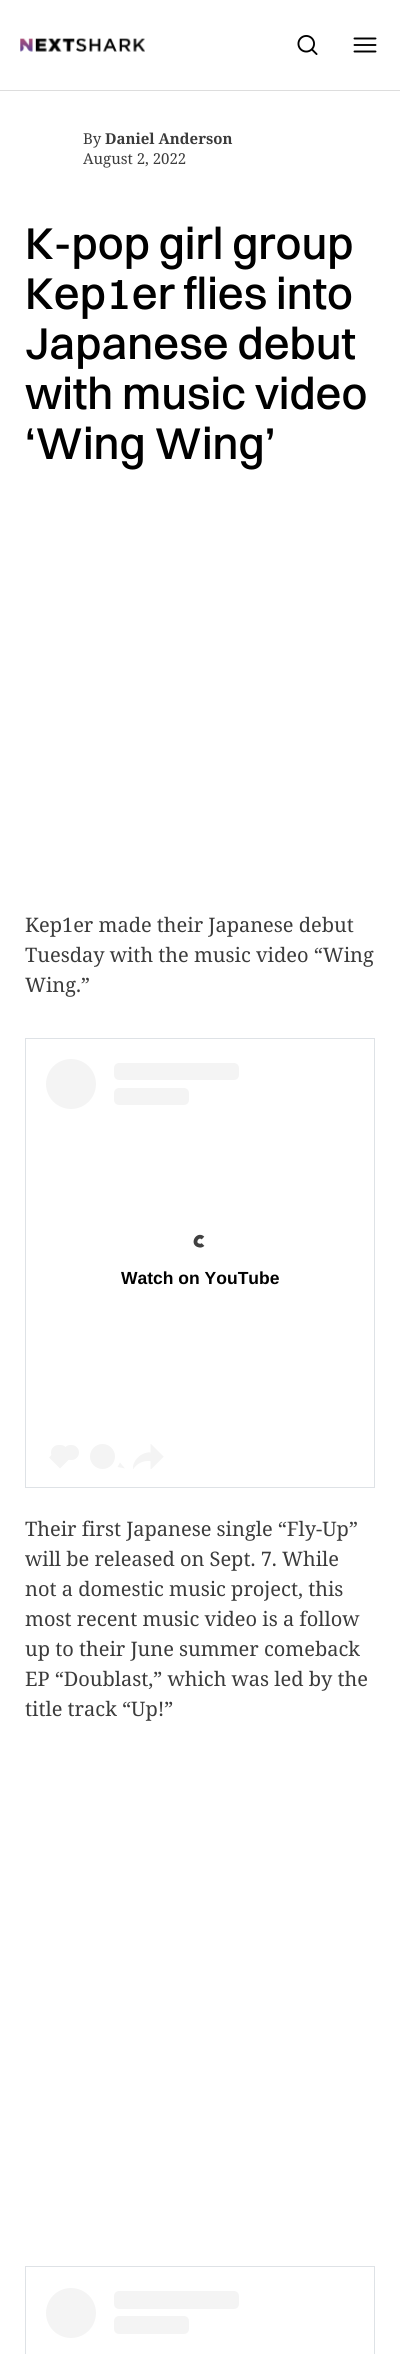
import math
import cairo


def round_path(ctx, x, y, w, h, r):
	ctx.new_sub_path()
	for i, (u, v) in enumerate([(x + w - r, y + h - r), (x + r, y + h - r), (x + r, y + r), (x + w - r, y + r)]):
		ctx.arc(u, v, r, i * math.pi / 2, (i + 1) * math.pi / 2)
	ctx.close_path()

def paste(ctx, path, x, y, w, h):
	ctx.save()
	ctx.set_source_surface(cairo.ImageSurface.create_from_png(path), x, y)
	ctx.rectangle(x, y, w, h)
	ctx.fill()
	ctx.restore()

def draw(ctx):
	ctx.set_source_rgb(1, 1, 1)
	ctx.paint()
	ctx.set_source_rgb(0.867, 0.867, 0.867)
	ctx.rectangle(0, 90, 400, 1)
	ctx.fill()
	paste(ctx, 'media/1.png', 20, 38, 125, 14)
	paste(ctx, 'media/2.png', 297, 35, 21, 20)
	ctx.new_path()
	ctx.move_to(354.5, 38.5)
	ctx.line_to(375.5, 38.5)
	ctx.move_to(354.5, 45)
	ctx.line_to(375.5, 45)
	ctx.move_to(354.5, 51.5)
	ctx.line_to(375.5, 51.5)
	ctx.set_source_rgb(0, 0, 0)
	ctx.set_line_width(1.9)
	ctx.set_line_cap(cairo.LINE_CAP_ROUND)
	ctx.set_line_join(cairo.LINE_JOIN_ROUND)
	ctx.stroke()
	ctx.select_font_face('Noto Serif')
	ctx.set_font_size(15)
	ctx.set_source_rgb(0.231, 0.231, 0.231)
	ctx.move_to(83, 144)
	ctx.show_text('By')
	ctx.select_font_face('Noto Serif', cairo.FONT_SLANT_NORMAL, cairo.FONT_WEIGHT_BOLD)
	ctx.move_to(105, 144)
	ctx.show_text('Daniel Anderson')
	ctx.select_font_face('Noto Serif')
	ctx.move_to(83, 164)
	ctx.show_text('August 2, 2022')
	ctx.select_font_face('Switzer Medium')
	ctx.set_font_size(45)
	ctx.set_source_rgb(0, 0, 0)
	for x, y, s in [
		(25, 259, 'K-pop girl group'),
		(25, 309, 'Kep1er flies into'),
		(25, 359, 'Japanese debut'),
		(25, 409, 'with music video'),
		(25, 459, '‘Wing Wing’'),
	]:
		ctx.move_to(x, y)
		ctx.show_text(s)
	ctx.select_font_face('Noto Serif')
	ctx.set_font_size(20)
	ctx.set_source_rgb(0.231, 0.231, 0.231)
	for x, y, s in [
		(25, 932, 'Kep1er made their Japanese debut'),
		(25, 962, 'Tuesday with the music video “Wing'),
		(25, 992, 'Wing.”'),
	]:
		ctx.move_to(x, y)
		ctx.show_text(s)
	ctx.rectangle(25.5, 1038.5, 349, 449)
	ctx.set_source_rgb(0.871, 0.886, 0.902)
	ctx.set_line_width(1)
	ctx.set_line_cap(cairo.LINE_CAP_BUTT)
	ctx.set_line_join(cairo.LINE_JOIN_MITER)
	ctx.stroke()
	ctx.set_source_rgb(0.957, 0.957, 0.957)
	ctx.arc(71, 1084, 25, 0, 2 * math.pi)
	ctx.fill()
	round_path(ctx, 114, 1063, 125, 17, 5)
	ctx.fill()
	round_path(ctx, 114, 1088, 75, 17, 5)
	ctx.fill()
	ctx.new_path()
	ctx.move_to(203, 1244.5)
	ctx.curve_to(202, 1245.5, 200.5, 1246, 199, 1245.5)
	ctx.curve_to(191.5, 1244, 197.5, 1233, 203, 1238)
	ctx.set_source_rgb(0.251, 0.251, 0.251)
	ctx.set_line_width(3.8)
	ctx.stroke()
	ctx.select_font_face('Liberation Sans', cairo.FONT_SLANT_NORMAL, cairo.FONT_WEIGHT_BOLD)
	ctx.set_font_size(17.5)
	ctx.set_source_rgb(0, 0, 0)
	ctx.move_to(121, 1284)
	ctx.show_text('Watch on YouTube')
	ctx.set_source_rgb(0.957, 0.957, 0.957)
	round_path(ctx, 51, 1445, 17, 15, 7.5)
	ctx.fill()
	ctx.new_path()
	ctx.move_to(49, 1457.5)
	ctx.line_to(60, 1446.5)
	ctx.line_to(71, 1457.5)
	ctx.line_to(60, 1468.5)
	ctx.close_path()
	ctx.fill()
	round_path(ctx, 63, 1445, 16, 15, 7.5)
	ctx.fill()
	ctx.arc(102.5, 1456.5, 12.5, 0, 2 * math.pi)
	ctx.fill()
	ctx.new_path()
	ctx.move_to(117.5, 1467)
	ctx.line_to(120, 1462.5)
	ctx.line_to(125, 1468.5)
	ctx.close_path()
	ctx.fill()
	paste(ctx, 'media/3.png', 133, 1444, 31, 25)
	ctx.select_font_face('Noto Serif')
	ctx.set_font_size(20)
	ctx.set_source_rgb(0.231, 0.231, 0.231)
	for x, y, s in [
		(25, 1536, 'Their first Japanese single “Fly-Up”'),
		(25, 1566, 'will be released on Sept. 7. While'),
		(25, 1596, 'not a domestic music project, this'),
		(25, 1626, 'most recent music video is a follow'),
		(25, 1656, 'up to their June summer comeback'),
		(25, 1686, 'EP “Doublast,” which was led by the'),
		(25, 1716, 'title track “Up!”'),
	]:
		ctx.move_to(x, y)
		ctx.show_text(s)
	ctx.rectangle(25.5, 2266.5, 349, 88)
	ctx.set_source_rgb(0.871, 0.886, 0.902)
	ctx.set_line_width(1)
	ctx.stroke()
	ctx.set_source_rgb(0.957, 0.957, 0.957)
	ctx.arc(71, 2313, 25, 0, 2 * math.pi)
	ctx.fill()
	round_path(ctx, 114, 2291, 125, 18, 5)
	ctx.fill()
	round_path(ctx, 114, 2316, 75, 18, 5)
	ctx.fill()


surface = cairo.ImageSurface(cairo.FORMAT_RGB24, 400, 2354)
ctx = cairo.Context(surface)
options = cairo.FontOptions()
options.set_hint_metrics(cairo.HINT_METRICS_OFF)
options.set_hint_style(cairo.HINT_STYLE_NONE)
ctx.set_font_options(options)
ctx.set_miter_limit(4)
draw(ctx)
surface.write_to_png('image.png')
